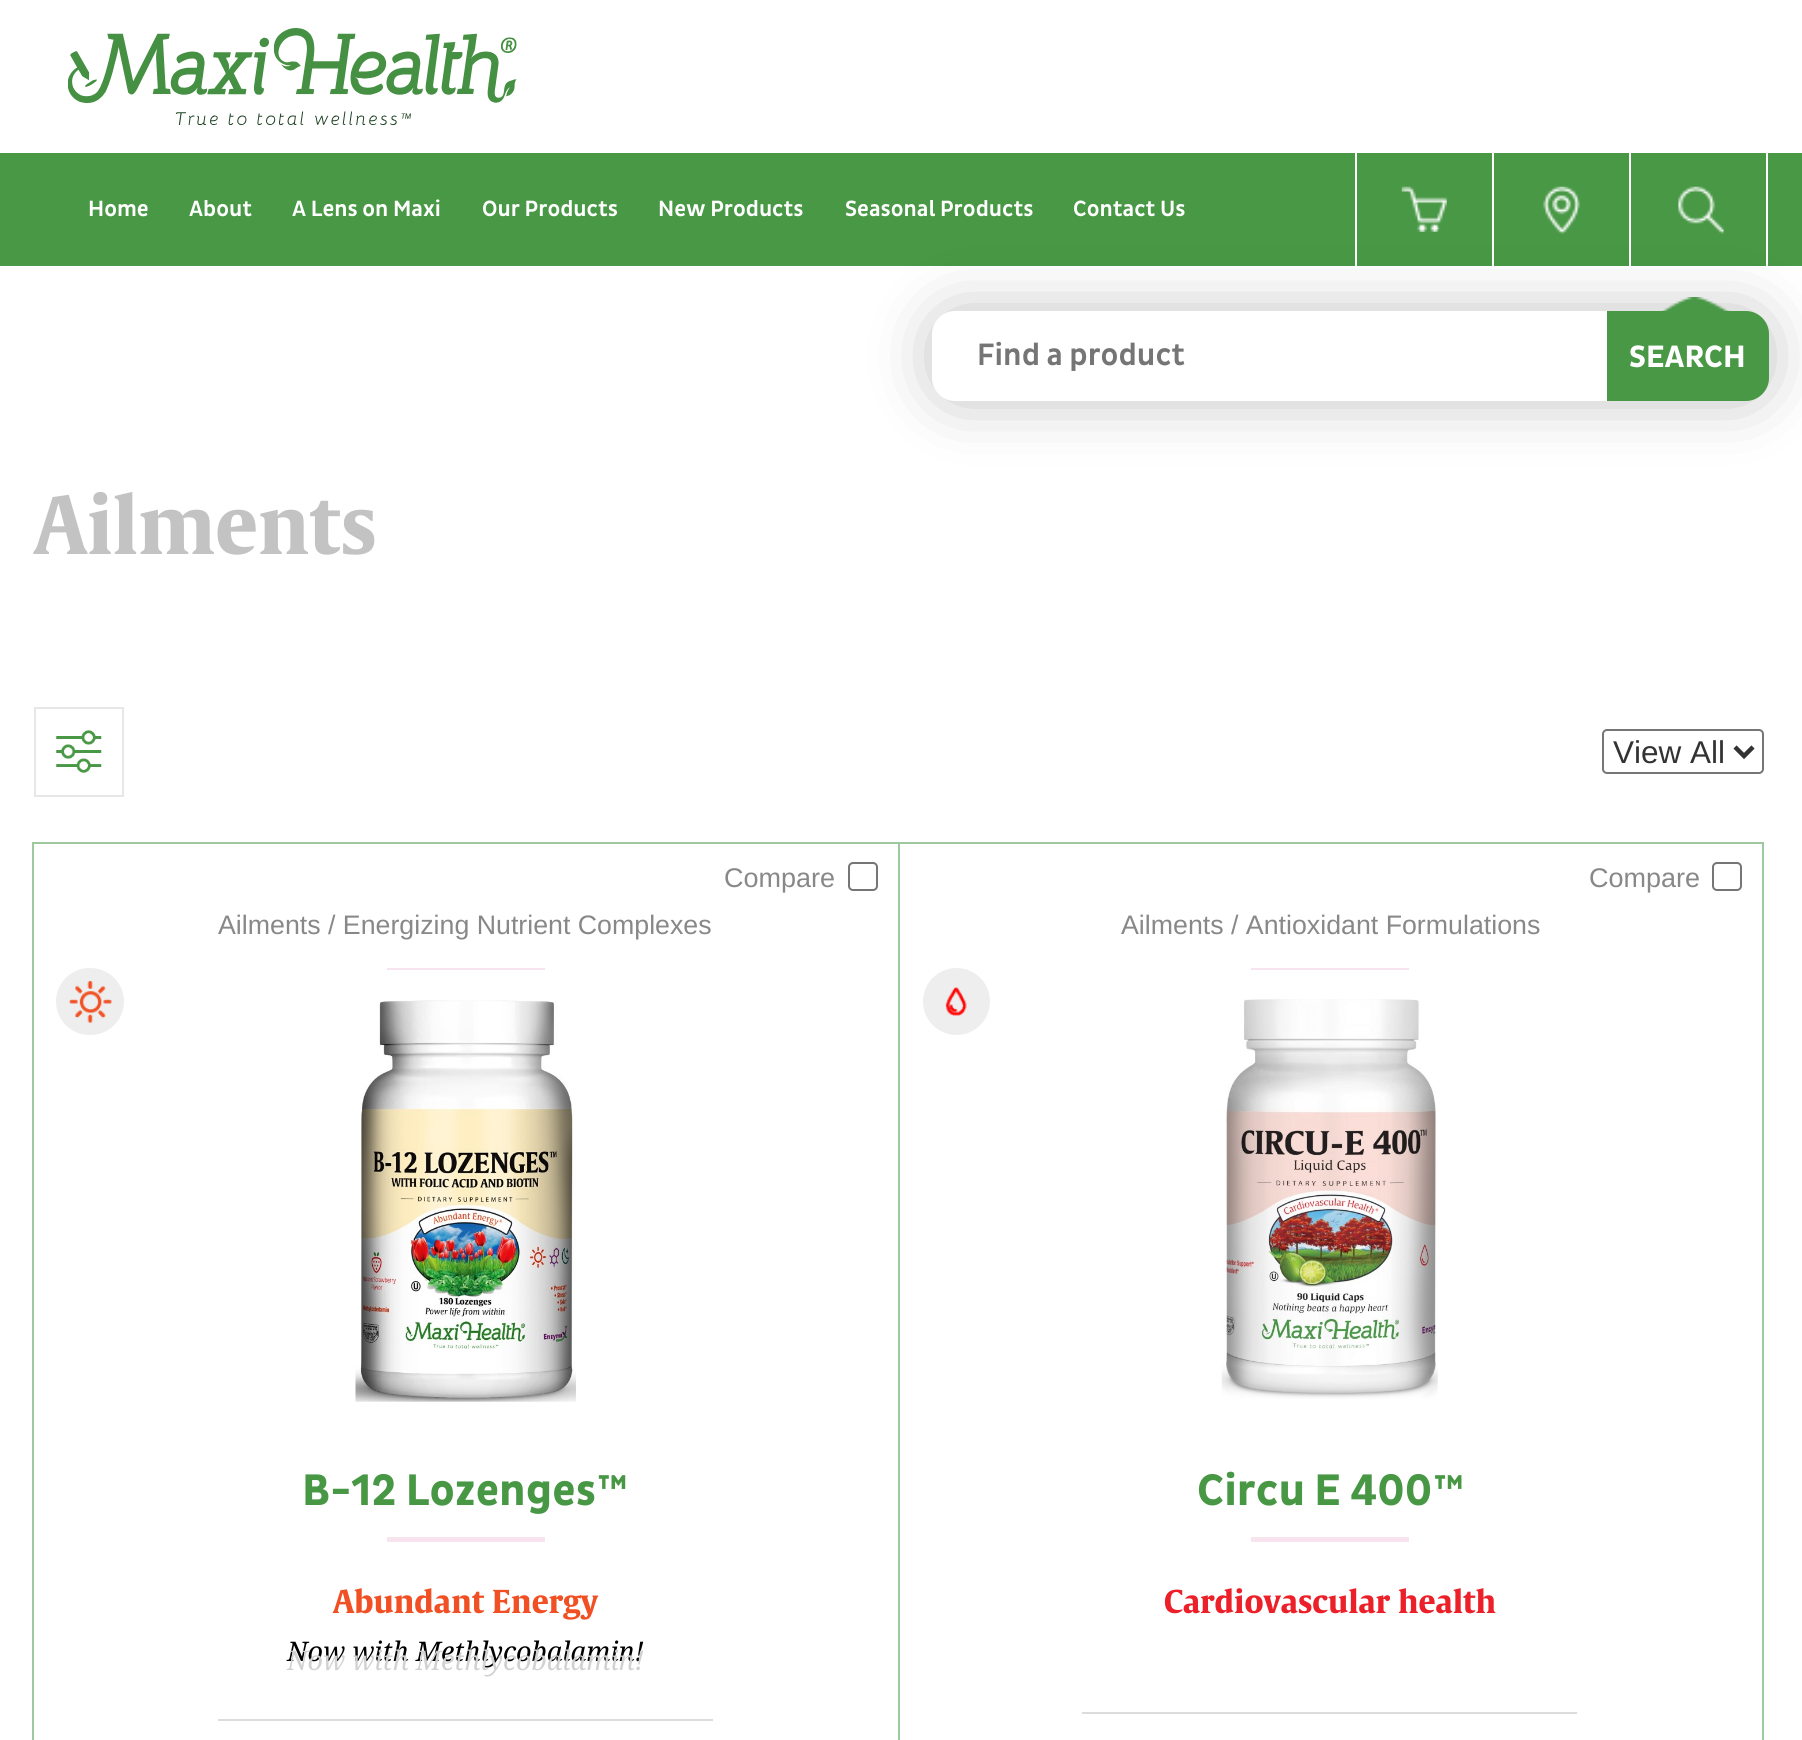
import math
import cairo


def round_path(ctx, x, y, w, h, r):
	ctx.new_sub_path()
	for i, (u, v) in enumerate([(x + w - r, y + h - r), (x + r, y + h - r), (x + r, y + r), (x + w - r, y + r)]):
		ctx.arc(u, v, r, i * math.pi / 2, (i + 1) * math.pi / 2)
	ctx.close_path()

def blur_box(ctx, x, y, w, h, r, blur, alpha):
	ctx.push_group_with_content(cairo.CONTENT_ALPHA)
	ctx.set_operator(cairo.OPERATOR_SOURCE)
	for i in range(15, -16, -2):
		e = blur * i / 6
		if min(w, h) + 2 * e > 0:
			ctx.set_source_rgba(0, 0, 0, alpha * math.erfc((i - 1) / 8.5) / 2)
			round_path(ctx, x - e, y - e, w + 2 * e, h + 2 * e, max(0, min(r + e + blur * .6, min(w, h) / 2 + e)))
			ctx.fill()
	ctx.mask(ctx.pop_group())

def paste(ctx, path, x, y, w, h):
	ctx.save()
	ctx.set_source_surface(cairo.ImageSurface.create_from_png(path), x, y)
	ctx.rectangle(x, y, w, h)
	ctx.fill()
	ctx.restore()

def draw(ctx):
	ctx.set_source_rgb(1, 1, 1)
	ctx.paint()
	paste(ctx, 'media/1.png', 68, 28, 449, 97)
	ctx.set_source_rgb(0.282, 0.596, 0.271)
	ctx.rectangle(0, 153, 1802, 113)
	ctx.fill()
	ctx.select_font_face('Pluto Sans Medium')
	ctx.set_font_size(22.5)
	ctx.set_source_rgb(1, 1, 1)
	for x, y, s in [
		(88, 216, 'Home'),
		(189, 216, 'About'),
		(292, 216, 'A Lens on Maxi'),
		(482, 216, 'Our Products'),
		(658, 216, 'New Products'),
		(845, 216, 'Seasonal Products'),
		(1073, 216, 'Contact Us'),
	]:
		ctx.move_to(x, y)
		ctx.show_text(s)
	ctx.rectangle(1355, 153, 2, 113)
	ctx.fill()
	paste(ctx, 'media/2.png', 1401, 186, 46, 46)
	ctx.rectangle(1492, 153, 2, 113)
	ctx.fill()
	paste(ctx, 'media/3.png', 1543, 186, 37, 48)
	ctx.rectangle(1766, 153, 2, 113)
	ctx.fill()
	ctx.rectangle(1629, 153, 2, 113)
	ctx.fill()
	paste(ctx, 'media/4.png', 1678, 186, 46, 48)
	ctx.set_source_rgb(0, 0, 0)
	blur_box(ctx, 941, 320, 819, 72, 14, 34, 0.31)
	paste(ctx, 'media/5.png', 1661, 297, 70, 14)
	ctx.set_source_rgb(1, 1, 1)
	ctx.new_path()
	ctx.move_to(955, 311)
	ctx.line_to(1607, 311)
	ctx.line_to(1607, 401)
	ctx.line_to(955, 401)
	ctx.curve_to(942.5, 401, 932, 390.5, 932, 378)
	ctx.line_to(932, 334)
	ctx.curve_to(932, 321.5, 942.5, 311, 955, 311)
	ctx.close_path()
	ctx.fill()
	ctx.set_font_size(31.5)
	ctx.set_source_rgb(0.459, 0.459, 0.459)
	ctx.move_to(977, 365)
	ctx.show_text('Find a product')
	ctx.set_source_rgb(0.282, 0.596, 0.271)
	ctx.new_path()
	ctx.move_to(1607, 311)
	ctx.line_to(1746, 311)
	ctx.curve_to(1758.5, 311, 1769, 321.5, 1769, 334)
	ctx.line_to(1769, 378)
	ctx.curve_to(1769, 390.5, 1758.5, 401, 1746, 401)
	ctx.line_to(1607, 401)
	ctx.close_path()
	ctx.fill()
	ctx.select_font_face('Pluto Sans', cairo.FONT_SLANT_NORMAL, cairo.FONT_WEIGHT_BOLD)
	ctx.set_source_rgb(1, 1, 1)
	ctx.move_to(1629, 367)
	ctx.show_text('SEARCH')
	ctx.select_font_face('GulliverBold', cairo.FONT_SLANT_NORMAL, cairo.FONT_WEIGHT_BOLD)
	ctx.set_font_size(78.75)
	ctx.set_source_rgb(0.761, 0.765, 0.761)
	ctx.move_to(34, 554)
	ctx.show_text('Ailments')
	paste(ctx, 'media/6.png', 56, 730, 46, 43)
	ctx.rectangle(35, 708, 88, 88)
	ctx.set_source_rgb(0.902, 0.91, 0.902)
	ctx.stroke()
	round_path(ctx, 1603, 730, 160, 43, 4)
	ctx.set_source_rgb(0.463, 0.463, 0.463)
	ctx.stroke()
	ctx.new_path()
	ctx.move_to(1735, 747)
	ctx.line_to(1744, 756)
	ctx.line_to(1753, 747)
	ctx.set_source_rgb(0.2, 0.2, 0.2)
	ctx.set_line_width(4.5)
	ctx.stroke()
	ctx.select_font_face('Liberation Sans')
	ctx.set_font_size(31.5)
	ctx.move_to(1613, 763)
	ctx.show_text('View All')
	ctx.rectangle(33, 843, 866, 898)
	ctx.set_source_rgb(0.62, 0.784, 0.616)
	ctx.set_line_width(2)
	ctx.stroke()
	ctx.set_font_size(27)
	ctx.set_source_rgb(0.533, 0.533, 0.533)
	ctx.move_to(724, 887)
	ctx.show_text('Compare')
	round_path(ctx, 849, 863, 28, 27, 4)
	ctx.set_source_rgb(0.463, 0.463, 0.463)
	ctx.stroke()
	ctx.set_font_size(26.75)
	ctx.set_source_rgb(0.533, 0.533, 0.533)
	ctx.move_to(218, 934)
	ctx.show_text('Ailments / Energizing Nutrient Complexes')
	ctx.set_source_rgb(0.965, 0.894, 0.937)
	ctx.rectangle(387, 968, 158, 2)
	ctx.fill()
	ctx.set_source_rgb(0.933, 0.933, 0.933)
	round_path(ctx, 56, 968, 68, 67, 33.5)
	ctx.fill()
	paste(ctx, 'media/7.png', 69, 981, 43, 42)
	paste(ctx, 'media/8.png', 355, 1000, 221, 402)
	ctx.select_font_face('Pluto Sans', cairo.FONT_SLANT_NORMAL, cairo.FONT_WEIGHT_BOLD)
	ctx.set_font_size(45)
	ctx.set_source_rgb(0.278, 0.592, 0.271)
	ctx.move_to(302, 1505)
	ctx.show_text('B-12 Lozenges™')
	ctx.set_source_rgb(0.965, 0.894, 0.937)
	ctx.rectangle(387, 1537, 158, 5)
	ctx.fill()
	ctx.select_font_face('GulliverBold', cairo.FONT_SLANT_NORMAL, cairo.FONT_WEIGHT_BOLD)
	ctx.set_font_size(31.5)
	ctx.set_source_rgb(0.941, 0.314, 0.137)
	ctx.move_to(333, 1613)
	ctx.show_text('Abundant Energy')
	ctx.select_font_face('Noto Serif', cairo.FONT_SLANT_ITALIC)
	ctx.set_font_size(27)
	ctx.set_source_rgb(0, 0, 0)
	ctx.move_to(287, 1661)
	ctx.show_text('Now with Methlycobalamin!')
	ctx.set_source_rgb(0.82, 0.82, 0.82)
	ctx.move_to(287, 1670)
	ctx.show_text('Now with Methlycobalamin!')
	ctx.set_source_rgb(0.863, 0.863, 0.863)
	ctx.rectangle(218, 1719, 495, 2)
	ctx.fill()
	ctx.rectangle(899, 843, 864, 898)
	ctx.set_source_rgb(0.62, 0.784, 0.616)
	ctx.stroke()
	ctx.select_font_face('Liberation Sans')
	ctx.set_source_rgb(0.533, 0.533, 0.533)
	ctx.move_to(1589, 887)
	ctx.show_text('Compare')
	round_path(ctx, 1713, 863, 28, 27, 4)
	ctx.set_source_rgb(0.463, 0.463, 0.463)
	ctx.stroke()
	ctx.set_font_size(26.75)
	ctx.set_source_rgb(0.533, 0.533, 0.533)
	ctx.move_to(1121, 934)
	ctx.show_text('Ailments / Antioxidant Formulations')
	ctx.set_source_rgb(0.965, 0.894, 0.937)
	ctx.rectangle(1251, 968, 158, 2)
	ctx.fill()
	ctx.set_source_rgb(0.933, 0.933, 0.933)
	ctx.arc(956.5, 1001.5, 33.5, 0, 2 * math.pi)
	ctx.fill()
	paste(ctx, 'media/9.png', 945, 987, 22, 29)
	paste(ctx, 'media/10.png', 1221, 999, 217, 400)
	ctx.select_font_face('Pluto Sans', cairo.FONT_SLANT_NORMAL, cairo.FONT_WEIGHT_BOLD)
	ctx.set_font_size(45)
	ctx.set_source_rgb(0.278, 0.592, 0.271)
	ctx.move_to(1197, 1505)
	ctx.show_text('Circu E 400™')
	ctx.set_source_rgb(0.965, 0.894, 0.937)
	ctx.rectangle(1251, 1537, 158, 5)
	ctx.fill()
	ctx.select_font_face('GulliverBold', cairo.FONT_SLANT_NORMAL, cairo.FONT_WEIGHT_BOLD)
	ctx.set_font_size(31.5)
	ctx.set_source_rgb(0.925, 0.125, 0.157)
	ctx.move_to(1164, 1613)
	ctx.show_text('Cardiovascular health')
	ctx.set_source_rgb(0.863, 0.863, 0.863)
	ctx.rectangle(1082, 1712, 495, 2)
	ctx.fill()


surface = cairo.ImageSurface(cairo.FORMAT_RGB24, 1802, 1740)
ctx = cairo.Context(surface)
options = cairo.FontOptions()
options.set_hint_metrics(cairo.HINT_METRICS_OFF)
options.set_hint_style(cairo.HINT_STYLE_NONE)
ctx.set_font_options(options)
ctx.set_miter_limit(4)
draw(ctx)
surface.write_to_png('image.png')
